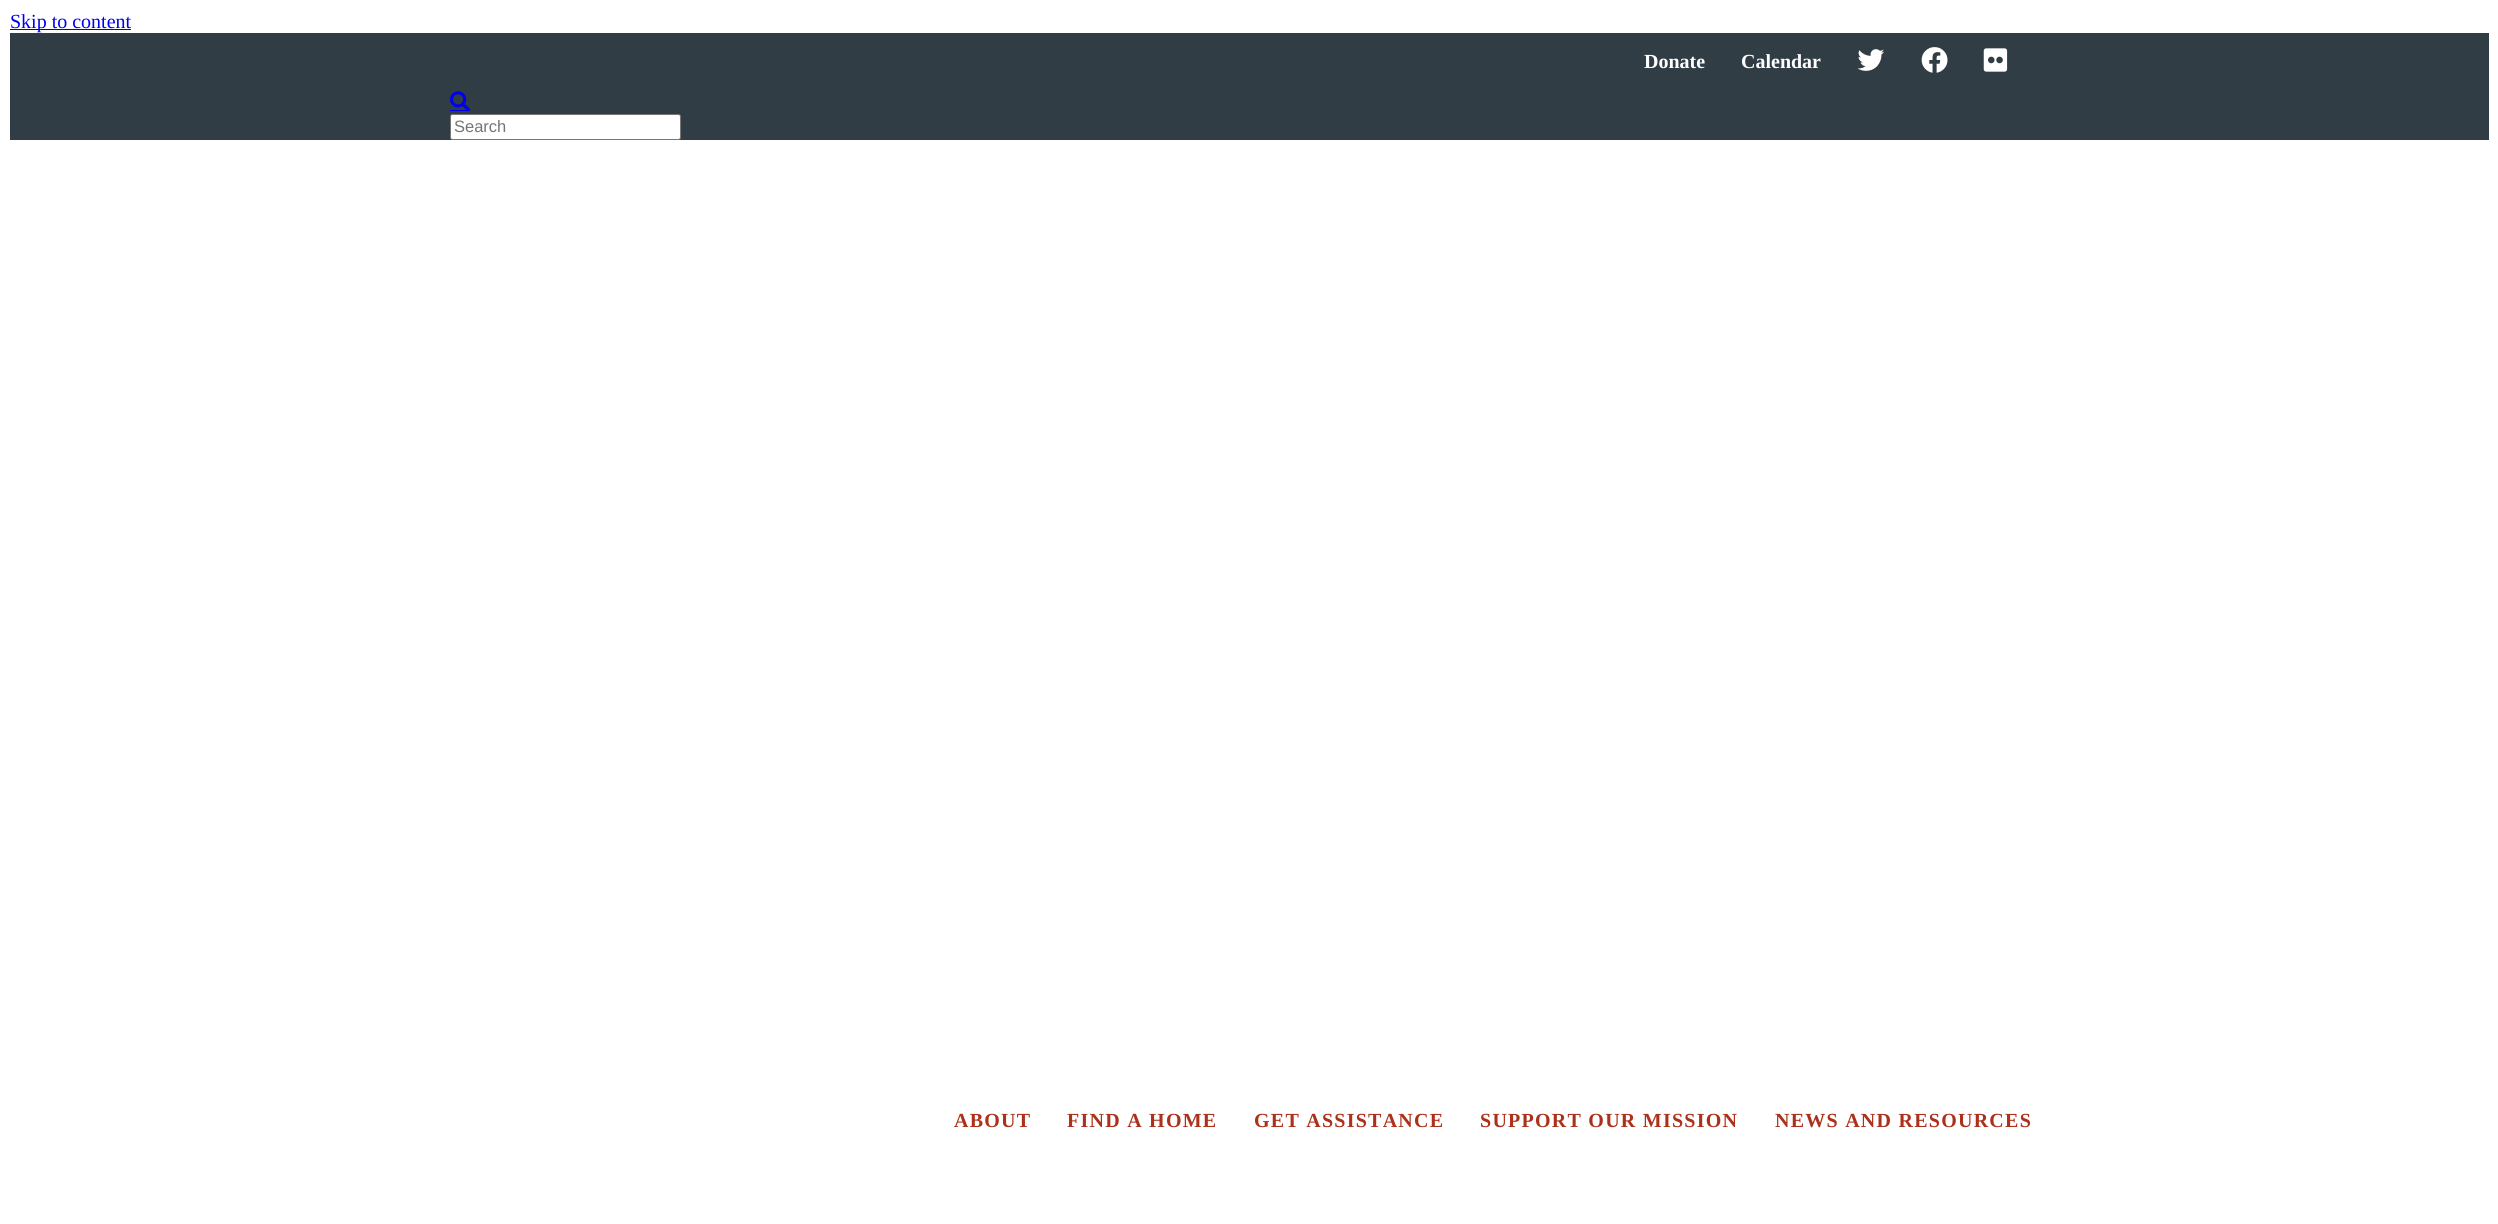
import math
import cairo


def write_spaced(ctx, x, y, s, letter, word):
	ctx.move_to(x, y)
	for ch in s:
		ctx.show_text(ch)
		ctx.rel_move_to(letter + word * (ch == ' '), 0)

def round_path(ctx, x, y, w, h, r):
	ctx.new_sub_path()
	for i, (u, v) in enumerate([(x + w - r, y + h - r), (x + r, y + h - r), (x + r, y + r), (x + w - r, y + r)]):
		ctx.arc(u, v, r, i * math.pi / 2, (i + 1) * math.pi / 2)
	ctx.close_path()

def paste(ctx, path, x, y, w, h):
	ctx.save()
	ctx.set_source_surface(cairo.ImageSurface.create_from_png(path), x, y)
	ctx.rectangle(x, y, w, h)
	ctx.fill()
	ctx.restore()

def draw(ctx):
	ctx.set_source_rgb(1, 1, 1)
	ctx.paint()
	ctx.set_source_rgb(0, 0, 0.933)
	ctx.rectangle(10, 29, 121, 1)
	ctx.fill()
	ctx.select_font_face('Liberation Serif')
	ctx.set_font_size(20)
	ctx.move_to(10, 28)
	ctx.show_text('Skip to content')
	ctx.set_source_rgb(0.188, 0.239, 0.271)
	ctx.rectangle(10, 33, 2479, 107)
	ctx.fill()
	ctx.select_font_face('Liberation Serif', cairo.FONT_SLANT_NORMAL, cairo.FONT_WEIGHT_BOLD)
	ctx.set_source_rgb(1, 1, 1)
	ctx.move_to(1644, 68)
	ctx.show_text('Donate')
	ctx.move_to(1741, 68)
	ctx.show_text('Calendar')
	paste(ctx, 'media/1.png', 1857, 49, 27, 22)
	paste(ctx, 'media/2.png', 1921, 47, 27, 26)
	paste(ctx, 'media/3.png', 1983, 48, 25, 24)
	ctx.set_source_rgb(0, 0, 0.933)
	ctx.rectangle(450, 110, 20, 1)
	ctx.fill()
	paste(ctx, 'media/4.png', 450, 91, 20, 21)
	ctx.set_source_rgb(1, 1, 1)
	round_path(ctx, 450.5, 114.5, 230, 25, 2)
	ctx.fill_preserve()
	ctx.set_source_rgb(0.463, 0.463, 0.463)
	ctx.set_line_width(1)
	ctx.stroke()
	ctx.select_font_face('Liberation Sans')
	ctx.set_font_size(16.5)
	ctx.set_source_rgb(0.459, 0.459, 0.459)
	ctx.move_to(454, 132)
	ctx.show_text('Search')
	ctx.select_font_face('Liberation Serif', cairo.FONT_SLANT_NORMAL, cairo.FONT_WEIGHT_BOLD)
	ctx.set_font_size(20)
	ctx.set_source_rgb(0.675, 0.192, 0.106)
	for x, y, s in [
		(954, 1127, 'ABOUT'),
		(1067, 1127, 'FIND A HOME'),
		(1254, 1127, 'GET ASSISTANCE'),
		(1480, 1127, 'SUPPORT OUR MISSION'),
		(1775, 1127, 'NEWS AND RESOURCES'),
	]:
		write_spaced(ctx, x, y, s, 1.25, 0)


surface = cairo.ImageSurface(cairo.FORMAT_RGB24, 2498, 1224)
ctx = cairo.Context(surface)
options = cairo.FontOptions()
options.set_hint_metrics(cairo.HINT_METRICS_OFF)
options.set_hint_style(cairo.HINT_STYLE_NONE)
ctx.set_font_options(options)
ctx.set_miter_limit(4)
draw(ctx)
surface.write_to_png('image.png')
